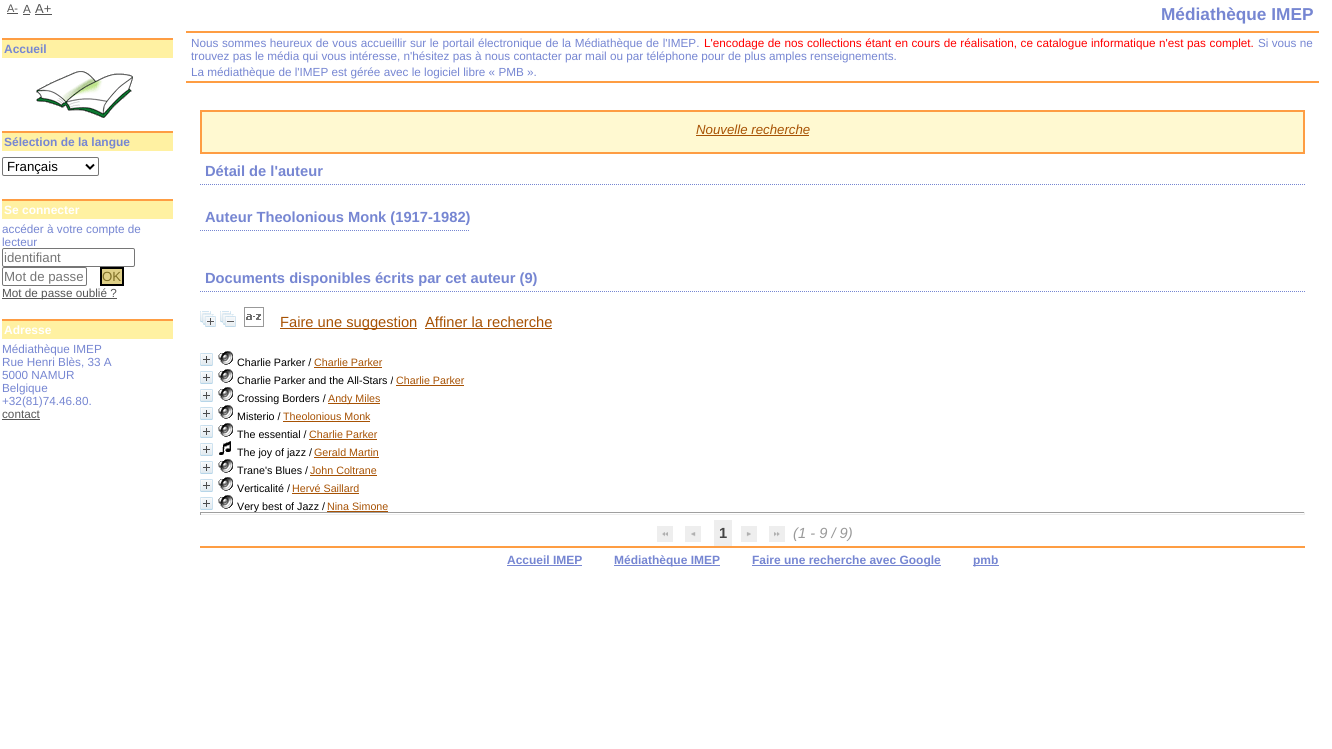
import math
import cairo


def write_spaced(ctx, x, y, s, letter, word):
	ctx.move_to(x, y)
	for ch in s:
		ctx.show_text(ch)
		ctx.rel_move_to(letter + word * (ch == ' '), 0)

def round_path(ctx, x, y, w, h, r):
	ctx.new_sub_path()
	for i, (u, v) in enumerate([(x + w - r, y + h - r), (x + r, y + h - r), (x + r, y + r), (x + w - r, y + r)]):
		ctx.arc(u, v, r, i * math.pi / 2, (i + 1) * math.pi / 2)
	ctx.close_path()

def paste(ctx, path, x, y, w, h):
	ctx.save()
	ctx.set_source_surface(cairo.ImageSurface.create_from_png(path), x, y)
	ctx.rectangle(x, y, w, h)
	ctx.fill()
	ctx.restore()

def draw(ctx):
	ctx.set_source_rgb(1, 1, 1)
	ctx.paint()
	ctx.select_font_face('Liberation Sans')
	ctx.set_font_size(11)
	ctx.set_source_rgb(0.333, 0.333, 0.333)
	ctx.move_to(7, 12)
	ctx.show_text('A-')
	ctx.rectangle(7, 13, 11, 1)
	ctx.fill()
	ctx.set_font_size(11.73)
	ctx.move_to(23, 13)
	ctx.show_text('A')
	ctx.rectangle(23, 14, 7, 1)
	ctx.fill()
	ctx.set_font_size(13)
	ctx.move_to(35, 13)
	ctx.show_text('A+')
	ctx.rectangle(35, 14, 17, 1)
	ctx.fill()
	ctx.set_source_rgb(1, 0.945, 0.635)
	ctx.rectangle(2, 40, 171, 18)
	ctx.fill()
	ctx.set_source_rgb(0.996, 0.616, 0.263)
	ctx.rectangle(2, 38, 171, 2)
	ctx.fill()
	ctx.select_font_face('Liberation Sans', cairo.FONT_SLANT_NORMAL, cairo.FONT_WEIGHT_BOLD)
	ctx.set_font_size(12)
	ctx.set_source_rgb(0.463, 0.525, 0.824)
	ctx.move_to(4, 53)
	ctx.show_text('Accueil')
	paste(ctx, 'media/1.png', 36, 71, 97, 47)
	ctx.set_source_rgb(1, 0.945, 0.635)
	ctx.rectangle(2, 133, 171, 18)
	ctx.fill()
	ctx.set_source_rgb(0.996, 0.616, 0.263)
	ctx.rectangle(2, 131, 171, 2)
	ctx.fill()
	ctx.set_source_rgb(0.463, 0.525, 0.824)
	ctx.move_to(4, 146)
	ctx.show_text('Sélection de la langue')
	round_path(ctx, 2.5, 157.5, 96, 18, 1.5)
	ctx.set_source_rgb(0.463, 0.463, 0.463)
	ctx.set_line_width(1)
	ctx.stroke()
	ctx.new_path()
	ctx.move_to(86, 164.5)
	ctx.line_to(90, 168.5)
	ctx.line_to(94, 164.5)
	ctx.set_source_rgb(0, 0, 0)
	ctx.set_line_width(2)
	ctx.stroke()
	ctx.select_font_face('Liberation Sans')
	ctx.set_font_size(13.25)
	ctx.move_to(7, 171)
	ctx.show_text('Français')
	ctx.set_source_rgb(1, 0.945, 0.635)
	ctx.rectangle(2, 201, 171, 18)
	ctx.fill()
	ctx.set_source_rgb(0.996, 0.616, 0.263)
	ctx.rectangle(2, 199, 171, 2)
	ctx.fill()
	ctx.select_font_face('Liberation Sans', cairo.FONT_SLANT_NORMAL, cairo.FONT_WEIGHT_BOLD)
	ctx.set_font_size(12)
	ctx.set_source_rgb(1, 1, 1)
	ctx.move_to(4, 214)
	ctx.show_text('Se connecter')
	ctx.select_font_face('Liberation Sans')
	ctx.set_font_size(11.73)
	ctx.set_source_rgb(0.463, 0.525, 0.824)
	ctx.move_to(2, 233)
	ctx.show_text('accéder à votre compte de')
	ctx.move_to(2, 246)
	ctx.show_text('lecteur')
	round_path(ctx, 2.5, 248.5, 132, 18, 1.5)
	ctx.set_source_rgb(0.463, 0.463, 0.463)
	ctx.set_line_width(1)
	ctx.stroke()
	ctx.set_font_size(13.25)
	ctx.set_source_rgb(0.459, 0.459, 0.459)
	ctx.move_to(4, 262)
	ctx.show_text('identifiant')
	round_path(ctx, 2.5, 267.5, 84, 18, 1.5)
	ctx.set_source_rgb(0.463, 0.463, 0.463)
	ctx.stroke()
	ctx.set_source_rgb(0.459, 0.459, 0.459)
	ctx.move_to(4, 281)
	ctx.show_text('Mot de passe')
	ctx.set_source_rgb(0.875, 0.816, 0.529)
	ctx.rectangle(101, 268, 22, 17)
	ctx.fill_preserve()
	ctx.set_source_rgb(0, 0, 0)
	ctx.set_line_width(2)
	ctx.stroke()
	ctx.set_source_rgb(0.498, 0.439, 0.153)
	ctx.move_to(102, 281)
	ctx.show_text('OK')
	ctx.set_source_rgb(0.333, 0.333, 0.333)
	ctx.rectangle(2, 298, 115, 1)
	ctx.fill()
	ctx.set_font_size(11.73)
	ctx.move_to(2, 297)
	ctx.show_text('Mot de passe oublié ?')
	ctx.set_source_rgb(1, 0.945, 0.635)
	ctx.rectangle(2, 321, 171, 18)
	ctx.fill()
	ctx.set_source_rgb(0.996, 0.616, 0.263)
	ctx.rectangle(2, 319, 171, 2)
	ctx.fill()
	ctx.select_font_face('Liberation Sans', cairo.FONT_SLANT_NORMAL, cairo.FONT_WEIGHT_BOLD)
	ctx.set_font_size(12)
	ctx.set_source_rgb(1, 1, 1)
	ctx.move_to(4, 334)
	ctx.show_text('Adresse')
	ctx.select_font_face('Liberation Sans')
	ctx.set_font_size(11.73)
	ctx.set_source_rgb(0.463, 0.525, 0.824)
	for x, y, s in [
		(2, 353, 'Médiathèque IMEP'),
		(2, 366, 'Rue Henri Blès, 33 A'),
		(2, 379, '5000 NAMUR'),
		(2, 392, 'Belgique'),
		(2, 405, '+32(81)74.46.80.'),
	]:
		ctx.move_to(x, y)
		ctx.show_text(s)
	ctx.set_source_rgb(0.333, 0.333, 0.333)
	ctx.move_to(2, 418)
	ctx.show_text('contact')
	ctx.rectangle(2, 419, 38, 1)
	ctx.fill()
	ctx.set_source_rgb(0.996, 0.616, 0.263)
	ctx.rectangle(186, 81, 1133, 2)
	ctx.rectangle(186, 31, 1133, 2)
	ctx.fill()
	ctx.select_font_face('Liberation Sans', cairo.FONT_SLANT_NORMAL, cairo.FONT_WEIGHT_BOLD)
	ctx.set_font_size(17.25)
	ctx.set_source_rgb(0.463, 0.525, 0.824)
	ctx.move_to(1161, 20)
	ctx.show_text('Médiathèque IMEP')
	ctx.select_font_face('Liberation Sans')
	ctx.set_font_size(11.73)
	write_spaced(ctx, 191, 47, 'Nous sommes heureux de vous accueillir sur le portail électronique de la Médiathèque de l\'IMEP.', 0, 0.3)
	ctx.set_source_rgb(1, 0, 0)
	write_spaced(ctx, 704, 47, 'L\'encodage de nos collections étant en cours de réalisation, ce catalogue informatique n\'est pas complet.', 0, 0.3)
	ctx.set_source_rgb(0.463, 0.525, 0.824)
	for x, y, s in [
		(1258, 47, 'Si vous ne'),
		(191, 60, 'trouvez pas le média qui vous intéresse, n\'hésitez pas à nous contacter par mail ou par téléphone pour de plus amples renseignements.'),
		(191, 76, 'La médiathèque de l\'IMEP est gérée avec le logiciel libre « PMB ».'),
	]:
		ctx.move_to(x, y)
		ctx.show_text(s)
	ctx.set_source_rgb(1, 0.973, 0.82)
	ctx.rectangle(201, 111, 1103, 42)
	ctx.fill_preserve()
	ctx.set_source_rgb(0.996, 0.616, 0.263)
	ctx.stroke()
	ctx.select_font_face('Liberation Sans', cairo.FONT_SLANT_ITALIC)
	ctx.set_font_size(13.25)
	ctx.set_source_rgb(0.655, 0.322, 0.016)
	ctx.move_to(696, 134)
	ctx.show_text('Nouvelle recherche')
	ctx.rectangle(696, 135, 113, 1)
	ctx.fill()
	ctx.new_path()
	ctx.move_to(200, 184.5)
	ctx.line_to(1305, 184.5)
	ctx.set_source_rgb(0.463, 0.525, 0.824)
	ctx.set_line_width(1)
	ctx.set_dash([1, 1])
	ctx.stroke()
	ctx.select_font_face('Liberation Sans', cairo.FONT_SLANT_NORMAL, cairo.FONT_WEIGHT_BOLD)
	ctx.set_font_size(14.7)
	ctx.move_to(205, 176)
	ctx.show_text('Détail de l\'auteur')
	ctx.new_path()
	ctx.move_to(200, 230.5)
	ctx.line_to(469, 230.5)
	ctx.stroke()
	ctx.move_to(205, 222)
	ctx.show_text('Auteur Theolonious Monk (1917-1982)')
	ctx.new_path()
	ctx.move_to(200, 291.5)
	ctx.line_to(1305, 291.5)
	ctx.stroke()
	ctx.move_to(205, 283)
	ctx.show_text('Documents disponibles écrits par cet auteur (9)')
	paste(ctx, 'media/2.png', 200, 311, 16, 16)
	paste(ctx, 'media/3.png', 220, 311, 16, 16)
	paste(ctx, 'media/4.png', 244, 307, 20, 20)
	ctx.set_source_rgb(0.655, 0.322, 0.016)
	ctx.rectangle(280, 328, 137, 1)
	ctx.fill()
	ctx.select_font_face('Liberation Sans')
	ctx.move_to(280, 327)
	ctx.show_text('Faire une suggestion')
	ctx.move_to(425, 327)
	ctx.show_text('Affiner la recherche')
	ctx.rectangle(425, 328, 127, 1)
	ctx.fill()
	paste(ctx, 'media/5.png', 200, 353, 13, 13)
	paste(ctx, 'media/6.png', 218, 351, 15, 14)
	ctx.set_font_size(10.7)
	ctx.set_source_rgb(0, 0, 0)
	ctx.move_to(237, 366)
	ctx.show_text('Charlie Parker /')
	ctx.set_source_rgb(0.655, 0.322, 0.016)
	ctx.move_to(314, 366)
	ctx.show_text('Charlie Parker')
	ctx.rectangle(314, 367, 68, 1)
	ctx.fill()
	paste(ctx, 'media/5.png', 200, 371, 13, 13)
	paste(ctx, 'media/6.png', 218, 369, 15, 14)
	ctx.set_source_rgb(0, 0, 0)
	ctx.move_to(237, 384)
	ctx.show_text('Charlie Parker and the All-Stars /')
	ctx.set_source_rgb(0.655, 0.322, 0.016)
	ctx.move_to(396, 384)
	ctx.show_text('Charlie Parker')
	ctx.rectangle(396, 385, 68, 1)
	ctx.fill()
	paste(ctx, 'media/5.png', 200, 389, 13, 13)
	paste(ctx, 'media/6.png', 218, 387, 15, 14)
	ctx.set_source_rgb(0, 0, 0)
	ctx.move_to(237, 402)
	ctx.show_text('Crossing Borders /')
	ctx.set_source_rgb(0.655, 0.322, 0.016)
	ctx.rectangle(328, 403, 52, 1)
	ctx.fill()
	ctx.move_to(328, 402)
	ctx.show_text('Andy Miles')
	paste(ctx, 'media/5.png', 200, 407, 13, 13)
	paste(ctx, 'media/6.png', 218, 405, 15, 14)
	ctx.set_source_rgb(0, 0, 0)
	ctx.move_to(237, 420)
	ctx.show_text('Misterio /')
	ctx.set_source_rgb(0.655, 0.322, 0.016)
	ctx.move_to(283, 420)
	ctx.show_text('Theolonious Monk')
	ctx.rectangle(283, 421, 87, 1)
	ctx.fill()
	paste(ctx, 'media/5.png', 200, 425, 13, 13)
	paste(ctx, 'media/6.png', 218, 423, 15, 14)
	ctx.set_source_rgb(0, 0, 0)
	ctx.move_to(237, 438)
	ctx.show_text('The essential /')
	ctx.set_source_rgb(0.655, 0.322, 0.016)
	ctx.move_to(309, 438)
	ctx.show_text('Charlie Parker')
	ctx.rectangle(309, 439, 68, 1)
	ctx.fill()
	paste(ctx, 'media/5.png', 200, 443, 13, 13)
	paste(ctx, 'media/7.png', 219, 441, 12, 14)
	ctx.set_source_rgb(0, 0, 0)
	ctx.move_to(237, 456)
	ctx.show_text('The joy of jazz /')
	ctx.set_source_rgb(0.655, 0.322, 0.016)
	ctx.rectangle(314, 457, 65, 1)
	ctx.fill()
	ctx.move_to(314, 456)
	ctx.show_text('Gerald Martin')
	paste(ctx, 'media/5.png', 200, 461, 13, 13)
	paste(ctx, 'media/6.png', 218, 459, 15, 14)
	ctx.set_source_rgb(0, 0, 0)
	ctx.move_to(237, 474)
	ctx.show_text('Trane\'s Blues /')
	ctx.set_source_rgb(0.655, 0.322, 0.016)
	ctx.move_to(310, 474)
	ctx.show_text('John Coltrane')
	ctx.rectangle(310, 475, 67, 1)
	ctx.fill()
	paste(ctx, 'media/5.png', 200, 479, 13, 13)
	paste(ctx, 'media/6.png', 218, 477, 15, 14)
	ctx.set_source_rgb(0, 0, 0)
	ctx.move_to(237, 492)
	ctx.show_text('Verticalité /')
	ctx.set_source_rgb(0.655, 0.322, 0.016)
	ctx.move_to(292, 492)
	ctx.show_text('Hervé Saillard')
	ctx.rectangle(292, 493, 67, 1)
	ctx.fill()
	paste(ctx, 'media/5.png', 200, 497, 13, 13)
	paste(ctx, 'media/6.png', 218, 495, 15, 14)
	ctx.set_source_rgb(0, 0, 0)
	ctx.move_to(237, 510)
	ctx.show_text('Very best of Jazz /')
	ctx.set_source_rgb(0.655, 0.322, 0.016)
	ctx.rectangle(327, 511, 61, 1)
	ctx.fill()
	ctx.move_to(327, 510)
	ctx.show_text('Nina Simone')
	ctx.set_source_rgb(0.624, 0.624, 0.624)
	ctx.rectangle(200, 512, 1105, 1)
	ctx.fill()
	ctx.set_source_rgb(0.933, 0.933, 0.933)
	ctx.rectangle(1304, 512, 1, 3)
	ctx.rectangle(200, 514, 1105, 1)
	ctx.fill()
	ctx.set_source_rgb(0.624, 0.624, 0.624)
	ctx.rectangle(200, 512, 1, 3)
	ctx.fill()
	ctx.set_source_rgb(0.933, 0.933, 0.933)
	ctx.rectangle(657, 526, 16, 16)
	ctx.fill()
	paste(ctx, 'media/8.png', 662, 532, 6, 5)
	ctx.rectangle(685, 526, 16, 16)
	ctx.fill()
	paste(ctx, 'media/9.png', 691, 532, 5, 5)
	ctx.rectangle(714, 520, 18, 26)
	ctx.fill()
	ctx.select_font_face('Liberation Sans', cairo.FONT_SLANT_NORMAL, cairo.FONT_WEIGHT_BOLD)
	ctx.set_font_size(14.7)
	ctx.set_source_rgb(0.267, 0.267, 0.267)
	ctx.move_to(719, 538)
	ctx.show_text('1')
	ctx.set_source_rgb(0.933, 0.933, 0.933)
	ctx.rectangle(741, 526, 16, 16)
	ctx.fill()
	paste(ctx, 'media/10.png', 746, 532, 5, 5)
	ctx.rectangle(769, 526, 16, 16)
	ctx.fill()
	paste(ctx, 'media/11.png', 774, 532, 6, 5)
	ctx.select_font_face('Liberation Sans', cairo.FONT_SLANT_ITALIC)
	ctx.set_source_rgb(0.6, 0.6, 0.6)
	ctx.move_to(793, 538)
	ctx.show_text('(1 - 9 / 9)')
	ctx.set_source_rgb(0.996, 0.616, 0.263)
	ctx.rectangle(200, 546, 1105, 2)
	ctx.fill()
	ctx.select_font_face('Liberation Sans', cairo.FONT_SLANT_NORMAL, cairo.FONT_WEIGHT_BOLD)
	ctx.set_font_size(12)
	ctx.set_source_rgb(0.463, 0.525, 0.824)
	ctx.move_to(507, 564)
	ctx.show_text('Accueil IMEP')
	ctx.rectangle(507, 565, 75, 1)
	ctx.fill()
	ctx.rectangle(614, 565, 106, 1)
	ctx.fill()
	ctx.move_to(614, 564)
	ctx.show_text('Médiathèque IMEP')
	ctx.rectangle(752, 565, 189, 1)
	ctx.fill()
	ctx.move_to(752, 564)
	ctx.show_text('Faire une recherche avec Google')
	ctx.rectangle(973, 565, 26, 1)
	ctx.fill()
	ctx.move_to(973, 564)
	ctx.show_text('pmb')


surface = cairo.ImageSurface(cairo.FORMAT_RGB24, 1332, 749)
ctx = cairo.Context(surface)
options = cairo.FontOptions()
options.set_hint_metrics(cairo.HINT_METRICS_OFF)
options.set_hint_style(cairo.HINT_STYLE_NONE)
ctx.set_font_options(options)
ctx.set_miter_limit(4)
draw(ctx)
surface.write_to_png('image.png')
